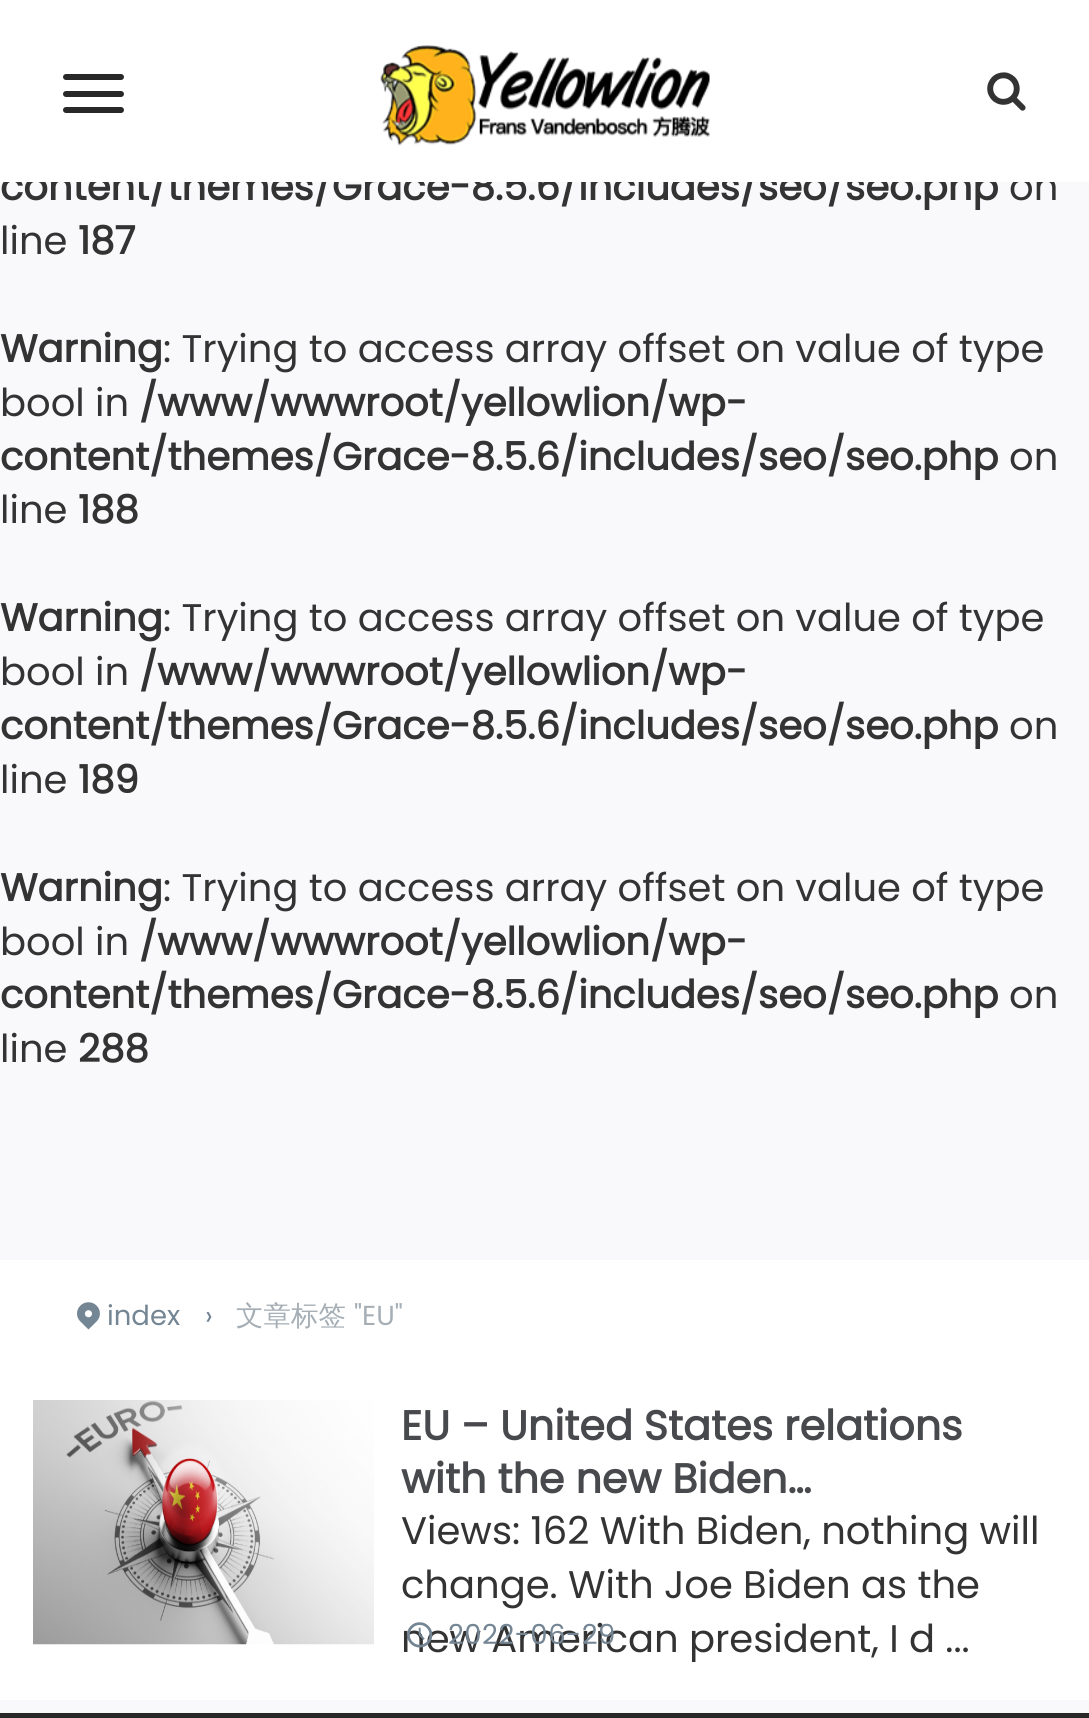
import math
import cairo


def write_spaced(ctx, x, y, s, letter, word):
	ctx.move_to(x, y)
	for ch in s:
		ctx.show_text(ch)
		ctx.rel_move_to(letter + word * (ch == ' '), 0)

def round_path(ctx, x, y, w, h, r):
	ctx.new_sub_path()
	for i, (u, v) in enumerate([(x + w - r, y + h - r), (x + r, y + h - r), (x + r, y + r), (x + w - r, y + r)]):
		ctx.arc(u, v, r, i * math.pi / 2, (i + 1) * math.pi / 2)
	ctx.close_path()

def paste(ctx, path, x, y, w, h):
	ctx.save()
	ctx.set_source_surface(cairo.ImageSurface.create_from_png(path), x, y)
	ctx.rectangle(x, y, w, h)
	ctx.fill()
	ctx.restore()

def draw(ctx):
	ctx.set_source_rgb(0.973, 0.976, 0.984)
	ctx.paint()
	ctx.select_font_face('Poppins', cairo.FONT_SLANT_NORMAL, cairo.FONT_WEIGHT_BOLD)
	ctx.set_font_size(38.5)
	ctx.set_source_rgb(0.2, 0.2, 0.2)
	ctx.move_to(0, 200)
	ctx.show_text('content/themes/Grace-8.5.6/includes/seo/seo.php')
	ctx.select_font_face('Poppins')
	ctx.move_to(1009, 200)
	ctx.show_text('on')
	ctx.set_source_rgb(1, 1, 1)
	ctx.rectangle(0, 0, 1089, 182)
	ctx.fill()
	ctx.set_source_rgb(0.157, 0.157, 0.157)
	round_path(ctx, 63, 74, 61, 6, 3)
	ctx.fill()
	round_path(ctx, 63, 91, 61, 6, 3)
	ctx.fill()
	round_path(ctx, 63, 107, 61, 6, 3)
	ctx.fill()
	paste(ctx, 'media/1.png', 380, 45, 330, 101)
	paste(ctx, 'media/2.png', 987, 72, 39, 39)
	ctx.set_source_rgb(0.2, 0.2, 0.2)
	ctx.move_to(0, 254)
	ctx.show_text('line')
	ctx.select_font_face('Poppins', cairo.FONT_SLANT_NORMAL, cairo.FONT_WEIGHT_BOLD)
	ctx.move_to(78, 254)
	ctx.show_text('187')
	ctx.move_to(0, 362)
	ctx.show_text('Warning')
	ctx.select_font_face('Poppins')
	ctx.move_to(163, 362)
	ctx.show_text(': Trying to access array offset on value of type')
	ctx.move_to(0, 416)
	ctx.show_text('bool in')
	ctx.select_font_face('Poppins', cairo.FONT_SLANT_NORMAL, cairo.FONT_WEIGHT_BOLD)
	ctx.move_to(139, 416)
	ctx.show_text('/www/wwwroot/yellowlion/wp-')
	ctx.move_to(0, 470)
	ctx.show_text('content/themes/Grace-8.5.6/includes/seo/seo.php')
	ctx.select_font_face('Poppins')
	ctx.move_to(1009, 470)
	ctx.show_text('on')
	ctx.move_to(0, 523)
	ctx.show_text('line')
	ctx.select_font_face('Poppins', cairo.FONT_SLANT_NORMAL, cairo.FONT_WEIGHT_BOLD)
	ctx.move_to(78, 523)
	ctx.show_text('188')
	ctx.move_to(0, 631)
	ctx.show_text('Warning')
	ctx.select_font_face('Poppins')
	ctx.move_to(163, 631)
	ctx.show_text(': Trying to access array offset on value of type')
	ctx.move_to(0, 685)
	ctx.show_text('bool in')
	ctx.select_font_face('Poppins', cairo.FONT_SLANT_NORMAL, cairo.FONT_WEIGHT_BOLD)
	ctx.move_to(139, 685)
	ctx.show_text('/www/wwwroot/yellowlion/wp-')
	ctx.move_to(0, 739)
	ctx.show_text('content/themes/Grace-8.5.6/includes/seo/seo.php')
	ctx.select_font_face('Poppins')
	ctx.move_to(1009, 739)
	ctx.show_text('on')
	ctx.move_to(0, 793)
	ctx.show_text('line')
	ctx.select_font_face('Poppins', cairo.FONT_SLANT_NORMAL, cairo.FONT_WEIGHT_BOLD)
	ctx.move_to(78, 793)
	ctx.show_text('189')
	ctx.move_to(0, 901)
	ctx.show_text('Warning')
	ctx.select_font_face('Poppins')
	ctx.move_to(163, 901)
	ctx.show_text(': Trying to access array offset on value of type')
	ctx.move_to(0, 955)
	ctx.show_text('bool in')
	ctx.select_font_face('Poppins', cairo.FONT_SLANT_NORMAL, cairo.FONT_WEIGHT_BOLD)
	ctx.move_to(139, 955)
	ctx.show_text('/www/wwwroot/yellowlion/wp-')
	ctx.move_to(0, 1008)
	ctx.show_text('content/themes/Grace-8.5.6/includes/seo/seo.php')
	ctx.select_font_face('Poppins')
	ctx.move_to(1009, 1008)
	ctx.show_text('on')
	ctx.move_to(0, 1062)
	ctx.show_text('line')
	ctx.select_font_face('Poppins', cairo.FONT_SLANT_NORMAL, cairo.FONT_WEIGHT_BOLD)
	ctx.move_to(78, 1062)
	ctx.show_text('288')
	ctx.set_source_rgb(1, 1, 1)
	ctx.rectangle(0, 1260, 1089, 440)
	ctx.fill()
	paste(ctx, 'media/3.png', 77, 1302, 23, 28)
	ctx.select_font_face('Poppins')
	ctx.set_font_size(27.5)
	ctx.set_source_rgb(0.455, 0.522, 0.58)
	ctx.move_to(107, 1325)
	ctx.show_text('index')
	ctx.move_to(205, 1325)
	ctx.show_text('›')
	ctx.select_font_face('WenQuanYi Zen Hei Medium')
	ctx.set_source_rgb(0.647, 0.682, 0.71)
	ctx.move_to(236, 1325)
	ctx.show_text('文章标签')
	ctx.select_font_face('Poppins')
	ctx.move_to(354, 1325)
	ctx.show_text('"EU"')
	paste(ctx, 'media/4.png', 33, 1400, 341, 245)
	ctx.select_font_face('Poppins', cairo.FONT_SLANT_NORMAL, cairo.FONT_WEIGHT_BOLD)
	ctx.set_font_size(41.25)
	ctx.set_source_rgb(0.282, 0.286, 0.302)
	ctx.move_to(401, 1440)
	ctx.show_text('EU – United States relations')
	ctx.move_to(401, 1493)
	ctx.show_text('with the new Biden…')
	ctx.select_font_face('Poppins')
	ctx.set_font_size(38.5)
	ctx.set_source_rgb(0.2, 0.2, 0.2)
	for x, y, s in [
		(401, 1544, 'Views: 162 With Biden, nothing will'),
		(401, 1598, 'change. With Joe Biden as the'),
		(401, 1652, 'new American president, I d ...'),
	]:
		ctx.move_to(x, y)
		ctx.show_text(s)
	paste(ctx, 'media/5.png', 407, 1622, 26, 26)
	ctx.set_font_size(27.5)
	ctx.set_source_rgb(0.455, 0.522, 0.58)
	write_spaced(ctx, 448, 1644, '2022-06-29', 0.5, 0)
	ctx.set_source_rgb(0.157, 0.157, 0.157)
	ctx.rectangle(0, 1713, 1089, 5)
	ctx.fill()


surface = cairo.ImageSurface(cairo.FORMAT_RGB24, 1089, 1718)
ctx = cairo.Context(surface)
options = cairo.FontOptions()
options.set_hint_metrics(cairo.HINT_METRICS_OFF)
options.set_hint_style(cairo.HINT_STYLE_NONE)
ctx.set_font_options(options)
ctx.set_miter_limit(4)
draw(ctx)
surface.write_to_png('image.png')
